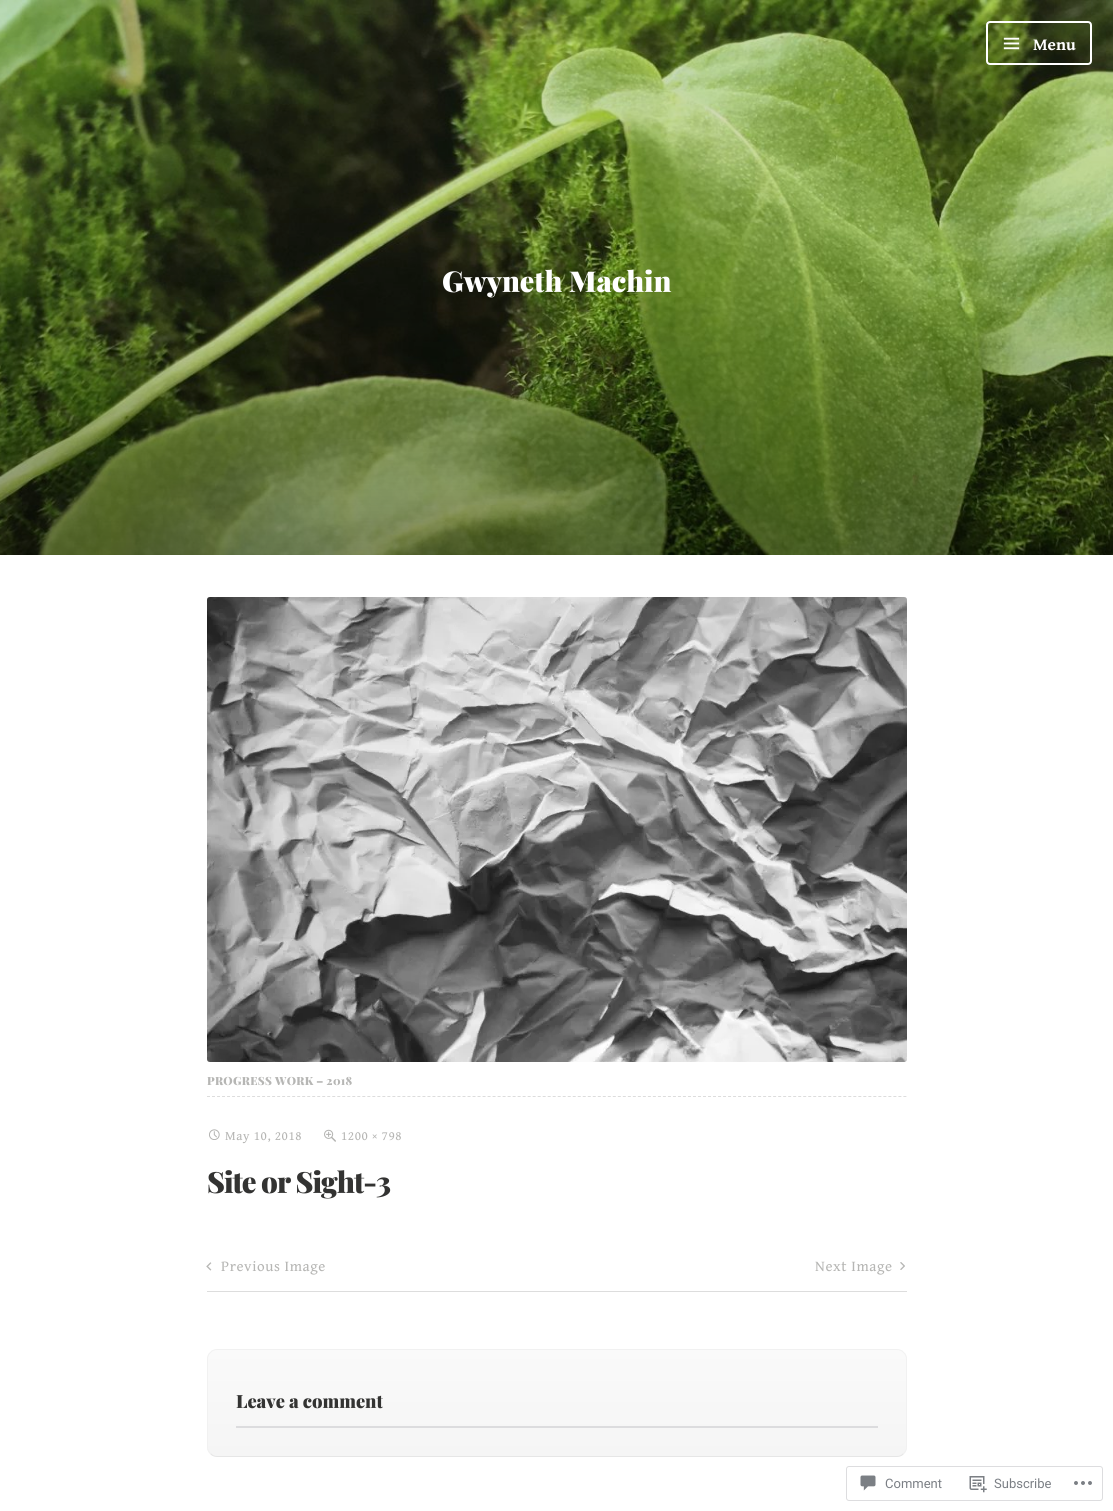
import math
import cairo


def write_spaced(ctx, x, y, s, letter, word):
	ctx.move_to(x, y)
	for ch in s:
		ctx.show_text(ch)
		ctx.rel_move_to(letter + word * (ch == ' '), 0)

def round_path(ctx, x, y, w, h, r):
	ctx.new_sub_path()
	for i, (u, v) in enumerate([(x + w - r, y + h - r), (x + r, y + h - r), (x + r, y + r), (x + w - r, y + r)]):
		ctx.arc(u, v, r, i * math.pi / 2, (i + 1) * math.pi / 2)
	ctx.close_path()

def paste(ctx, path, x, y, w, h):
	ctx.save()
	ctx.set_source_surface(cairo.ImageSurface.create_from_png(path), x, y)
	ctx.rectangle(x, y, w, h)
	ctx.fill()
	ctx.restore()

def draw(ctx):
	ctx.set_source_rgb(1, 1, 1)
	ctx.paint()
	paste(ctx, 'media/1.png', 0, 0, 1113, 555)
	round_path(ctx, 987, 22, 104, 42, 3)
	ctx.set_source_rgb(1, 1, 1)
	ctx.stroke()
	paste(ctx, 'media/2.png', 1003, 37, 17, 13)
	ctx.select_font_face('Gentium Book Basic', cairo.FONT_SLANT_NORMAL, cairo.FONT_WEIGHT_BOLD)
	ctx.set_font_size(17)
	ctx.move_to(1033, 50)
	ctx.show_text('Menu')
	ctx.select_font_face('Playfair Display Black')
	ctx.set_font_size(28.75)
	ctx.move_to(442, 292)
	ctx.show_text('Gwyneth Machin')
	paste(ctx, 'media/3.png', 207, 597, 700, 465)
	ctx.new_path()
	ctx.move_to(207, 1096.5)
	ctx.line_to(907, 1096.5)
	ctx.set_source_rgb(0.867, 0.867, 0.867)
	ctx.set_line_width(1)
	ctx.set_dash([3, 2.01])
	ctx.stroke()
	ctx.set_font_size(11.25)
	ctx.set_source_rgb(0.714, 0.714, 0.706)
	write_spaced(ctx, 207, 1085, 'PROGRESS WORK – 2018', 0.3, 0)
	paste(ctx, 'media/4.png', 209, 1129, 11, 11)
	ctx.select_font_face('Gentium Book Basic')
	ctx.set_font_size(13)
	write_spaced(ctx, 225, 1140, 'May 10, 2018', 0.6, 0)
	paste(ctx, 'media/5.png', 324, 1129, 12, 13)
	write_spaced(ctx, 341, 1140, '1200 × 798', 0.6, 0)
	ctx.select_font_face('Playfair Display Black')
	ctx.set_font_size(29.25)
	ctx.set_source_rgb(0.2, 0.2, 0.196)
	write_spaced(ctx, 207, 1193, 'Site or Sight-3', -1, 0)
	ctx.set_source_rgb(0.867, 0.867, 0.867)
	ctx.rectangle(207, 1291, 700, 1)
	ctx.fill()
	paste(ctx, 'media/6.png', 206, 1262, 6, 9)
	ctx.select_font_face('Gentium Book Basic')
	ctx.set_font_size(15)
	ctx.set_source_rgb(0.714, 0.714, 0.706)
	write_spaced(ctx, 221, 1271, 'Previous Image', 0.6, 0)
	write_spaced(ctx, 815, 1271, 'Next Image', 0.6, 0)
	paste(ctx, 'media/7.png', 900, 1262, 5, 8)
	ctx.save()
	round_path(ctx, 207, 1349, 700, 108, 10)
	ctx.clip()
	gradient = cairo.LinearGradient(557, 1350, 557, 1456)
	gradient.add_color_stop_rgba(0, 0.98, 0.98, 0.98, 1)
	gradient.add_color_stop_rgba(1, 0.961, 0.961, 0.961, 1)
	ctx.set_source(gradient)
	ctx.rectangle(207, 1350, 700, 106)
	ctx.fill()
	ctx.restore()
	ctx.new_path()
	ctx.move_to(903.5, 1453.5)
	ctx.curve_to(902, 1455.5, 899.5, 1456.5, 897, 1456.5)
	ctx.line_to(217, 1456.5)
	ctx.curve_to(214.5, 1456.5, 212, 1455.5, 210.5, 1453.5)
	ctx.set_source_rgb(0.902, 0.902, 0.902)
	ctx.set_dash([])
	ctx.stroke()
	ctx.new_path()
	ctx.move_to(210.5, 1453.5)
	ctx.curve_to(208.5, 1452, 207.5, 1449.5, 207.5, 1447)
	ctx.line_to(207.5, 1359)
	ctx.curve_to(207.5, 1356.5, 208.5, 1354, 210.5, 1352.5)
	ctx.curve_to(212, 1350.5, 214.5, 1349.5, 217, 1349.5)
	ctx.line_to(897, 1349.5)
	ctx.curve_to(899.5, 1349.5, 902, 1350.5, 903.5, 1352.5)
	ctx.curve_to(905.5, 1354, 906.5, 1356.5, 906.5, 1359)
	ctx.line_to(906.5, 1447)
	ctx.curve_to(906.5, 1449.5, 905.5, 1452, 903.5, 1453.5)
	ctx.set_source_rgb(0.945, 0.945, 0.945)
	ctx.stroke()
	ctx.select_font_face('Playfair Display Black')
	ctx.set_font_size(18.25)
	ctx.set_source_rgb(0.2, 0.2, 0.196)
	ctx.move_to(236, 1408)
	ctx.show_text('Leave a comment')
	ctx.set_source_rgb(0.863, 0.863, 0.871)
	ctx.rectangle(236, 1426, 642, 2)
	ctx.fill()
	round_path(ctx, 846.5, 1466.5, 256, 34, 2.5)
	ctx.set_source_rgb(0.867, 0.867, 0.875)
	ctx.stroke()
	paste(ctx, 'media/8.png', 860, 1475, 16, 16)
	ctx.select_font_face('Roboto')
	ctx.set_font_size(13)
	ctx.set_source_rgb(0.482, 0.498, 0.522)
	ctx.move_to(885, 1488)
	ctx.show_text('Comment')
	paste(ctx, 'media/9.png', 969, 1476, 18, 17)
	ctx.move_to(994, 1488)
	ctx.show_text('Subscribe')
	paste(ctx, 'media/10.png', 1074, 1481, 18, 4)


surface = cairo.ImageSurface(cairo.FORMAT_RGB24, 1113, 1511)
ctx = cairo.Context(surface)
options = cairo.FontOptions()
options.set_hint_metrics(cairo.HINT_METRICS_OFF)
options.set_hint_style(cairo.HINT_STYLE_NONE)
ctx.set_font_options(options)
ctx.set_miter_limit(4)
draw(ctx)
surface.write_to_png('image.png')
